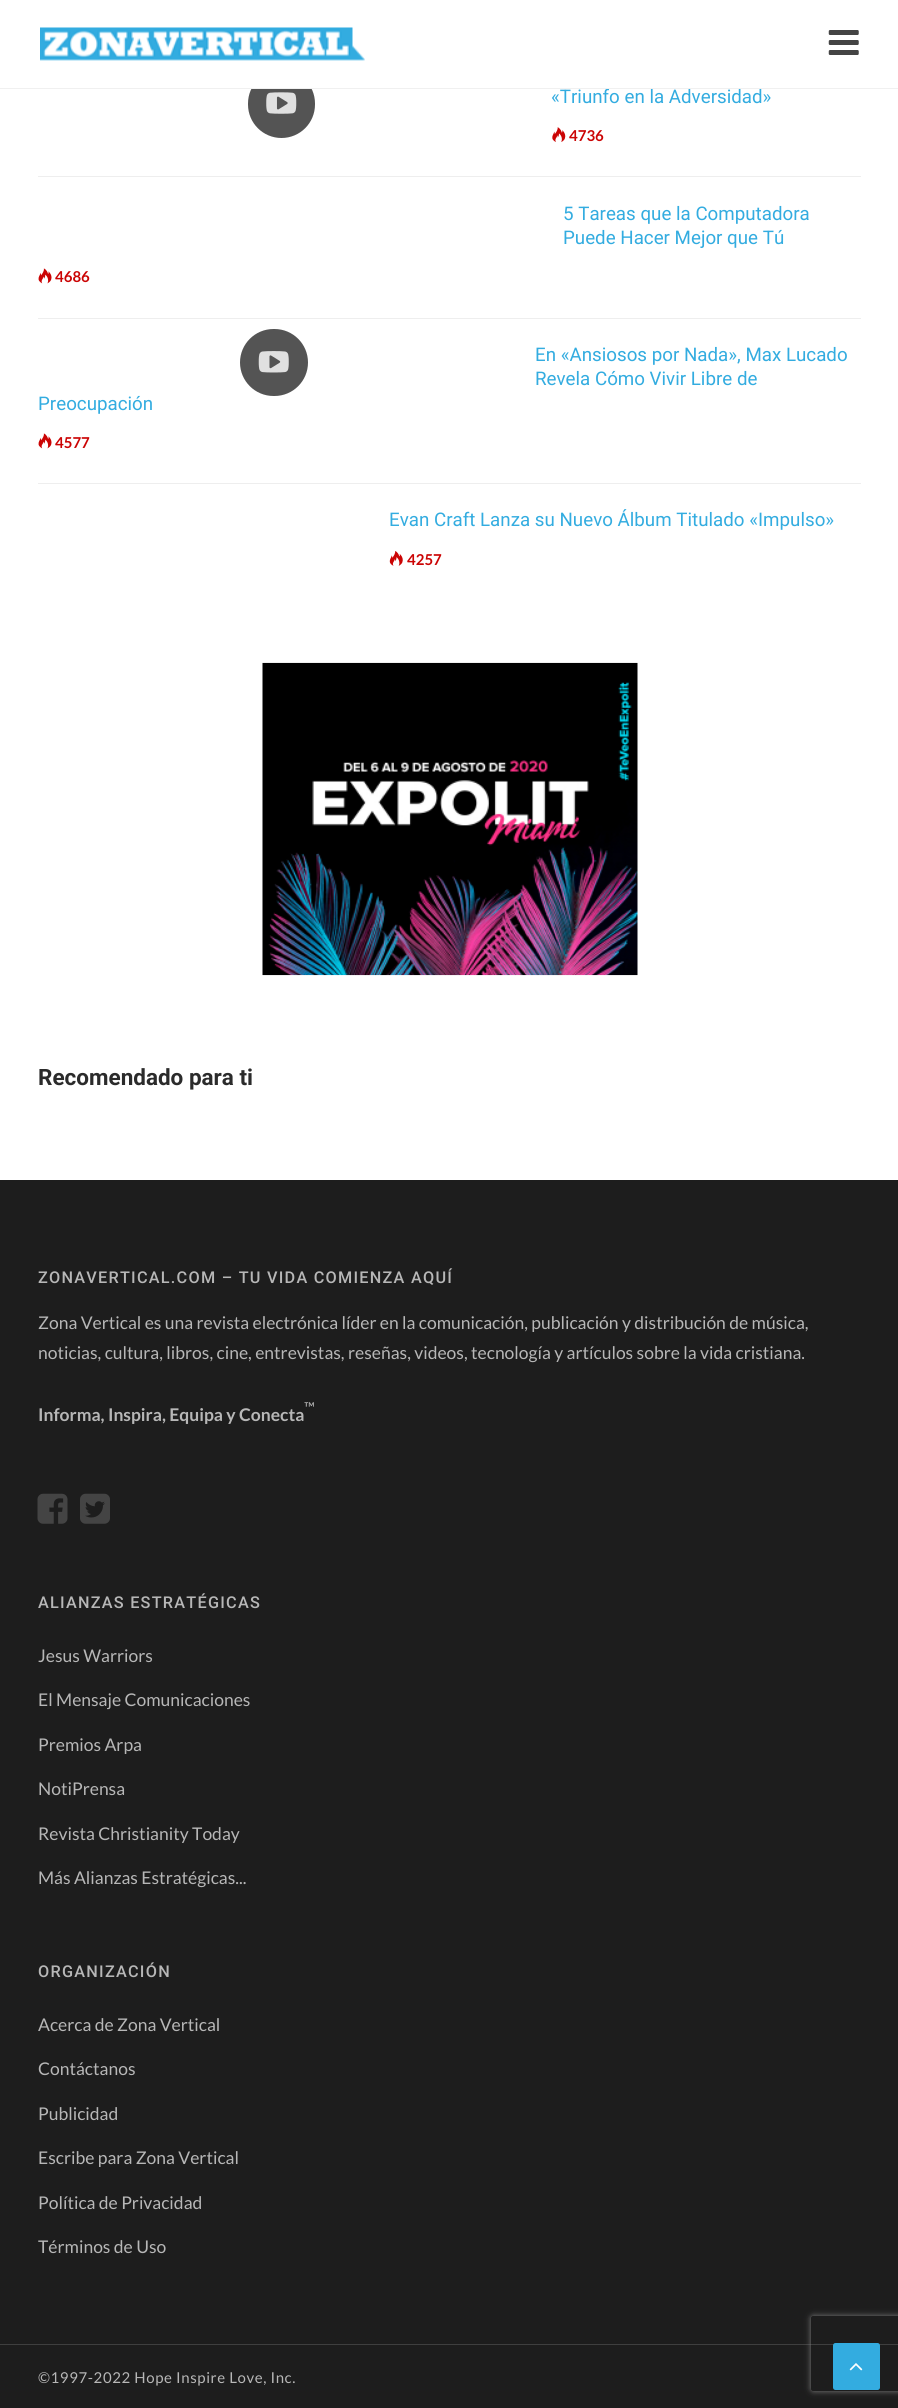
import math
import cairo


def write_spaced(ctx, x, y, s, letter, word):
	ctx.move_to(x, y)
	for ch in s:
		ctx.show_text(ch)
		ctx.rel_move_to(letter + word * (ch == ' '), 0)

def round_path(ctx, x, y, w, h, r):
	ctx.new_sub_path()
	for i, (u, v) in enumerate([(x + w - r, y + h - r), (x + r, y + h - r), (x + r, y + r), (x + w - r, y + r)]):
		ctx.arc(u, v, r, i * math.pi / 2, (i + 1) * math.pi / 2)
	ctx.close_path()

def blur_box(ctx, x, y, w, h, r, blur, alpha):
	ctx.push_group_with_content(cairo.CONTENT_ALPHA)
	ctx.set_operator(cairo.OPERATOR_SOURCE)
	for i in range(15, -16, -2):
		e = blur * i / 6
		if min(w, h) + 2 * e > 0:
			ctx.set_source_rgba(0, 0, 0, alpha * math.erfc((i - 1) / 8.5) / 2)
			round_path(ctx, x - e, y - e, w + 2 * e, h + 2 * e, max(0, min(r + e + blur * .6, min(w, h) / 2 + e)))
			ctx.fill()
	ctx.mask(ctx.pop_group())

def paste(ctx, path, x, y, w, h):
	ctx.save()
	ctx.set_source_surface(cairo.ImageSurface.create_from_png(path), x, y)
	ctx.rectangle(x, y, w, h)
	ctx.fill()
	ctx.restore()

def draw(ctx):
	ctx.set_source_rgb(1, 1, 1)
	ctx.paint()
	ctx.set_source_rgb(0.329, 0.329, 0.329)
	round_path(ctx, 248, 70, 67, 68, 33.5)
	ctx.fill()
	ctx.set_source_rgb(1, 1, 1)
	ctx.rectangle(251, 70, 61, 18)
	ctx.fill()
	ctx.select_font_face('Roboto')
	ctx.set_font_size(18.75)
	ctx.set_source_rgb(0.2, 0.675, 0.878)
	ctx.move_to(551, 103)
	ctx.show_text('«Triunfo en la Adversidad»')
	ctx.set_source_rgb(0.941, 0.941, 0.941)
	ctx.rectangle(0, 88, 898, 1)
	ctx.fill()
	paste(ctx, 'media/1.png', 40, 27, 325, 34)
	paste(ctx, 'media/2.png', 828, 30, 31, 25)
	ctx.set_source_rgb(0.933, 0.933, 0.933)
	ctx.rectangle(38, 176, 823, 1)
	ctx.fill()
	paste(ctx, 'media/3.png', 266, 92, 31, 22)
	paste(ctx, 'media/4.png', 552, 127, 14, 15)
	ctx.select_font_face('Lato', cairo.FONT_SLANT_NORMAL, cairo.FONT_WEIGHT_BOLD)
	ctx.set_font_size(15)
	ctx.set_source_rgb(0.796, 0.016, 0.016)
	ctx.move_to(569, 141)
	ctx.show_text('4736')
	ctx.set_source_rgb(0.933, 0.933, 0.933)
	ctx.rectangle(38, 318, 823, 1)
	ctx.fill()
	ctx.select_font_face('Roboto')
	ctx.set_font_size(18.75)
	ctx.set_source_rgb(0.2, 0.675, 0.878)
	ctx.move_to(563, 220)
	ctx.show_text('5 Tareas que la Computadora')
	ctx.move_to(563, 244)
	ctx.show_text('Puede Hacer Mejor que Tú')
	paste(ctx, 'media/5.png', 38, 268, 14, 16)
	ctx.select_font_face('Lato', cairo.FONT_SLANT_NORMAL, cairo.FONT_WEIGHT_BOLD)
	ctx.set_font_size(15)
	ctx.set_source_rgb(0.796, 0.016, 0.016)
	ctx.move_to(55, 282)
	ctx.show_text('4686')
	ctx.set_source_rgb(0.933, 0.933, 0.933)
	ctx.rectangle(38, 483, 823, 1)
	ctx.fill()
	ctx.set_source_rgb(0.329, 0.329, 0.329)
	round_path(ctx, 240, 329, 68, 67, 33.5)
	ctx.fill()
	paste(ctx, 'media/6.png', 258, 351, 31, 22)
	ctx.select_font_face('Roboto')
	ctx.set_font_size(18.75)
	ctx.set_source_rgb(0.2, 0.675, 0.878)
	for x, y, s in [
		(535, 361, 'En «Ansiosos por Nada», Max Lucado'),
		(535, 385, 'Revela Cómo Vivir Libre de'),
		(38, 410, 'Preocupación'),
	]:
		ctx.move_to(x, y)
		ctx.show_text(s)
	paste(ctx, 'media/5.png', 38, 433, 14, 16)
	ctx.select_font_face('Lato', cairo.FONT_SLANT_NORMAL, cairo.FONT_WEIGHT_BOLD)
	ctx.set_font_size(15)
	ctx.set_source_rgb(0.796, 0.016, 0.016)
	ctx.move_to(55, 448)
	ctx.show_text('4577')
	ctx.select_font_face('Roboto')
	ctx.set_font_size(18.75)
	ctx.set_source_rgb(0.2, 0.675, 0.878)
	ctx.move_to(389, 526)
	ctx.show_text('Evan Craft Lanza su Nuevo Álbum Titulado «Impulso»')
	paste(ctx, 'media/7.png', 389, 551, 14, 15)
	ctx.select_font_face('Lato', cairo.FONT_SLANT_NORMAL, cairo.FONT_WEIGHT_BOLD)
	ctx.set_font_size(15)
	ctx.set_source_rgb(0.796, 0.016, 0.016)
	ctx.move_to(407, 565)
	ctx.show_text('4257')
	paste(ctx, 'media/8.png', 262, 662, 376, 314)
	ctx.select_font_face('Roboto', cairo.FONT_SLANT_NORMAL, cairo.FONT_WEIGHT_BOLD)
	ctx.set_font_size(22.5)
	ctx.set_source_rgb(0.169, 0.169, 0.169)
	ctx.move_to(38, 1085)
	ctx.show_text('Recomendado para ti')
	ctx.set_source_rgb(0.114, 0.114, 0.114)
	ctx.rectangle(0, 1180, 898, 1164)
	ctx.fill()
	ctx.select_font_face('Roboto Medium')
	ctx.set_font_size(16.25)
	ctx.set_source_rgb(0.718, 0.718, 0.718)
	write_spaced(ctx, 38, 1283, 'ZONAVERTICAL.COM – TU VIDA COMIENZA AQUÍ', 1.25, 0)
	ctx.select_font_face('Lato')
	ctx.set_font_size(17.5)
	ctx.move_to(38, 1329)
	ctx.show_text('Zona Vertical es una revista electrónica líder en la comunicación, publicación y distribución de música,')
	ctx.move_to(38, 1359)
	ctx.show_text('noticias, cultura, libros, cine, entrevistas, reseñas, videos, tecnología y artículos sobre la vida cristiana.')
	ctx.set_font_size(15)
	ctx.move_to(304, 1413)
	ctx.show_text('™')
	ctx.select_font_face('Lato', cairo.FONT_SLANT_NORMAL, cairo.FONT_WEIGHT_BOLD)
	ctx.set_font_size(17.5)
	ctx.move_to(38, 1421)
	ctx.show_text('Informa, Inspira, Equipa y Conecta')
	paste(ctx, 'media/9.png', 37, 1493, 31, 31)
	paste(ctx, 'media/10.png', 80, 1493, 30, 31)
	ctx.select_font_face('Roboto Medium')
	ctx.set_font_size(16.25)
	write_spaced(ctx, 38, 1608, 'ALIANZAS ESTRATÉGICAS', 1.25, 0)
	ctx.select_font_face('Lato')
	ctx.set_font_size(17.5)
	for x, y, s in [
		(38, 1662, 'Jesus Warriors'),
		(38, 1706, 'El Mensaje Comunicaciones'),
		(38, 1751, 'Premios Arpa'),
		(38, 1795, 'NotiPrensa'),
		(38, 1840, 'Revista Christianity Today'),
		(38, 1884, 'Más Alianzas Estratégicas...'),
	]:
		ctx.move_to(x, y)
		ctx.show_text(s)
	ctx.select_font_face('Roboto Medium')
	ctx.set_font_size(16.25)
	write_spaced(ctx, 38, 1977, 'ORGANIZACIÓN', 1.25, 0)
	ctx.select_font_face('Lato')
	ctx.set_font_size(17.5)
	for x, y, s in [
		(38, 2031, 'Acerca de Zona Vertical'),
		(38, 2075, 'Contáctanos'),
		(38, 2120, 'Publicidad'),
		(38, 2164, 'Escribe para Zona Vertical'),
		(38, 2209, 'Política de Privacidad'),
		(38, 2253, 'Términos de Uso'),
	]:
		ctx.move_to(x, y)
		ctx.show_text(s)
	ctx.set_source_rgb(0.114, 0.114, 0.114)
	ctx.rectangle(0, 2345, 898, 63)
	ctx.fill()
	ctx.set_source_rgb(0.247, 0.247, 0.247)
	ctx.rectangle(0, 2344, 898, 1)
	ctx.fill()
	ctx.set_font_size(15)
	ctx.set_source_rgb(0.718, 0.718, 0.718)
	write_spaced(ctx, 38, 2383, '©1997-2022 Hope Inspire Love, Inc.', 0.6, 0)
	ctx.save()
	ctx.set_fill_rule(cairo.FILL_RULE_EVEN_ODD)
	ctx.new_path()
	ctx.move_to(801, 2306)
	ctx.line_to(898, 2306)
	ctx.line_to(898, 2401)
	ctx.line_to(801, 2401)
	ctx.close_path()
	ctx.move_to(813.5, 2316)
	ctx.line_to(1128.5, 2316)
	ctx.curve_to(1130, 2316, 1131, 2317, 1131, 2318.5)
	ctx.line_to(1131, 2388.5)
	ctx.curve_to(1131, 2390, 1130, 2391, 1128.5, 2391)
	ctx.line_to(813.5, 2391)
	ctx.curve_to(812, 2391, 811, 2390, 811, 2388.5)
	ctx.line_to(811, 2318.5)
	ctx.curve_to(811, 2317, 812, 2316, 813.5, 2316)
	ctx.close_path()
	ctx.clip()
	ctx.set_source_rgb(0.502, 0.502, 0.502)
	blur_box(ctx, 811, 2316, 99, 75, 2.5, 3, 1)
	ctx.restore()
	ctx.set_source_rgb(0.2, 0.675, 0.878)
	round_path(ctx, 833, 2343, 47, 47, 2.5)
	ctx.fill()
	paste(ctx, 'media/11.png', 849, 2363, 14, 8)


surface = cairo.ImageSurface(cairo.FORMAT_RGB24, 898, 2408)
ctx = cairo.Context(surface)
options = cairo.FontOptions()
options.set_hint_metrics(cairo.HINT_METRICS_OFF)
options.set_hint_style(cairo.HINT_STYLE_NONE)
ctx.set_font_options(options)
ctx.set_miter_limit(4)
draw(ctx)
surface.write_to_png('image.png')
